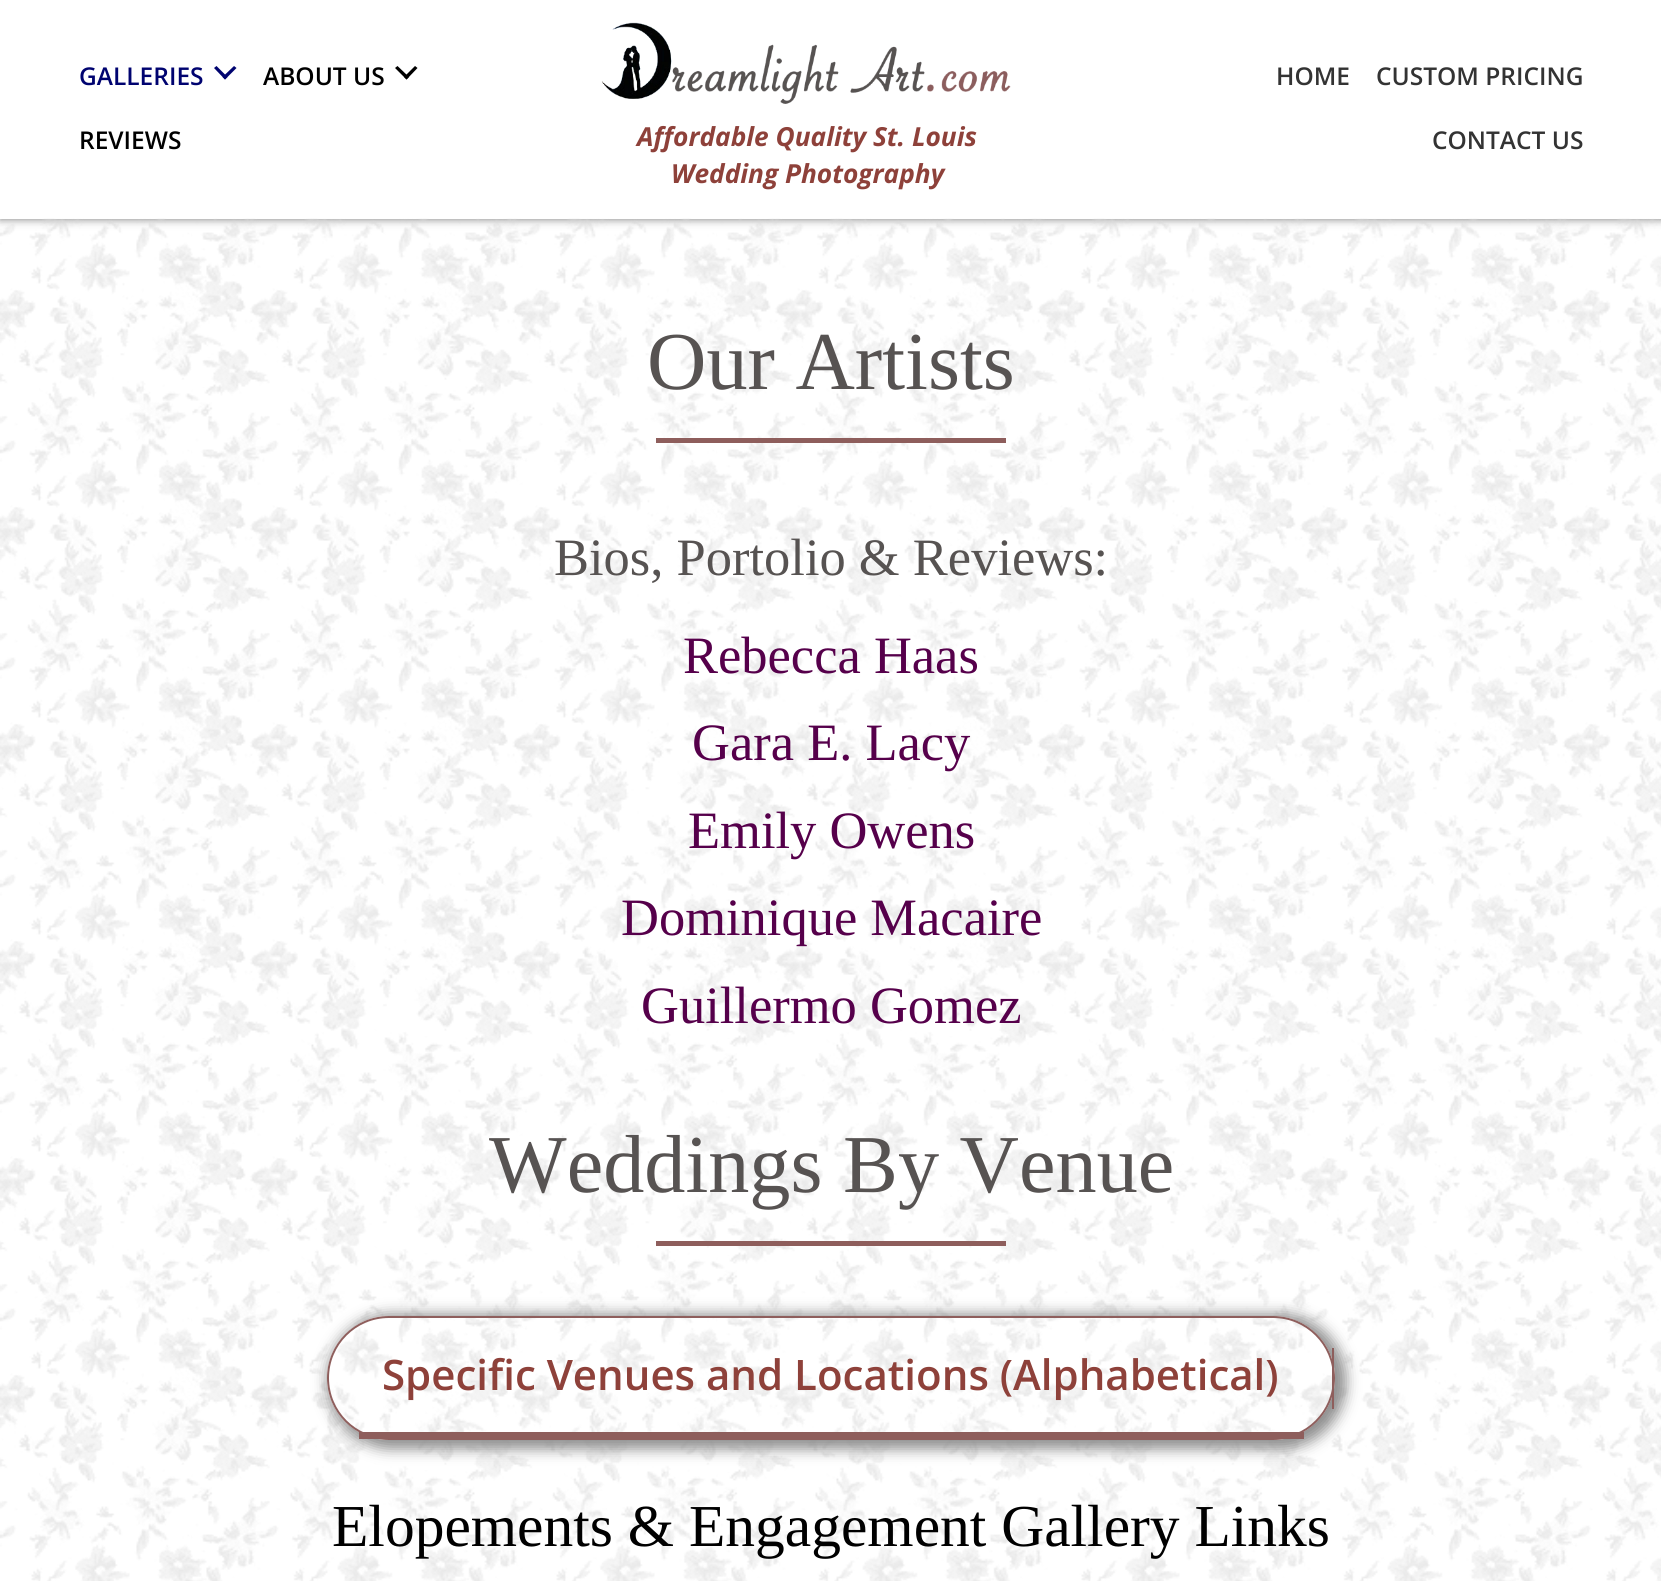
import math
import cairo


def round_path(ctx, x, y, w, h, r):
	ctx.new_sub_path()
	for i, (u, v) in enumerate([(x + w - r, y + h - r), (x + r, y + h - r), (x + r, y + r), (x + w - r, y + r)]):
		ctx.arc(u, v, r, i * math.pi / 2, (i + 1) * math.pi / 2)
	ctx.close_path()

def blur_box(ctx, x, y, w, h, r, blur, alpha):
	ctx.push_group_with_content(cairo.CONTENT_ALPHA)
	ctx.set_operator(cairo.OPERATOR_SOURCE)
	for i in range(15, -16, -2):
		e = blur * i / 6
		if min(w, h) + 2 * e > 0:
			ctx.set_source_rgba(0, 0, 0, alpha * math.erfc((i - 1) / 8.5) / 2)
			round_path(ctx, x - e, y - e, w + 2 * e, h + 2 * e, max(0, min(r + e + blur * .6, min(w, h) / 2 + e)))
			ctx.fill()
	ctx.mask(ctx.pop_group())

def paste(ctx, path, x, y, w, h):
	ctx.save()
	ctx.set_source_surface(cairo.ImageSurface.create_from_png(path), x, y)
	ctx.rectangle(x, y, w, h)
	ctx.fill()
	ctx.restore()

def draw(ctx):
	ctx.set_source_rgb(1, 1, 1)
	ctx.paint()
	ctx.set_source_rgb(0.467, 0.467, 0.467)
	blur_box(ctx, 0, 0, 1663, 219, 0, 4.5, 1)
	ctx.set_source_rgb(1, 1, 1)
	ctx.rectangle(0, 0, 1661, 219)
	ctx.fill()
	ctx.select_font_face('Open Sans SemiBold')
	ctx.set_font_size(24.5)
	ctx.set_source_rgb(0, 0.012, 0.439)
	ctx.move_to(79, 85)
	ctx.show_text('GALLERIES')
	ctx.new_path()
	ctx.move_to(234, 66)
	ctx.line_to(236.5, 68)
	ctx.line_to(225, 79.5)
	ctx.line_to(222.5, 77)
	ctx.close_path()
	ctx.fill()
	ctx.new_path()
	ctx.move_to(216.5, 66)
	ctx.line_to(227.5, 77)
	ctx.line_to(225, 79.5)
	ctx.line_to(214, 68)
	ctx.close_path()
	ctx.fill()
	ctx.set_source_rgb(0, 0, 0)
	ctx.move_to(263, 85)
	ctx.show_text('ABOUT US')
	ctx.new_path()
	ctx.move_to(415, 66)
	ctx.line_to(417.5, 68)
	ctx.line_to(406.5, 79.5)
	ctx.line_to(404, 77)
	ctx.close_path()
	ctx.fill()
	ctx.new_path()
	ctx.move_to(397.5, 66)
	ctx.line_to(409, 77)
	ctx.line_to(406.5, 79.5)
	ctx.line_to(395, 68)
	ctx.close_path()
	ctx.fill()
	ctx.move_to(79, 149)
	ctx.show_text('REVIEWS')
	ctx.set_source_rgb(0.2, 0.2, 0.2)
	for x, y, s in [
		(1276, 85, 'HOME'),
		(1376, 85, 'CUSTOM PRICING'),
		(1432, 149, 'CONTACT US'),
	]:
		ctx.move_to(x, y)
		ctx.show_text(s)
	paste(ctx, 'media/1.png', 601, 22, 410, 82)
	ctx.select_font_face('Open Sans', cairo.FONT_SLANT_ITALIC, cairo.FONT_WEIGHT_BOLD)
	ctx.set_font_size(26.25)
	ctx.set_source_rgb(0.557, 0.255, 0.227)
	ctx.move_to(637, 146)
	ctx.show_text('Affordable Quality St. Louis')
	ctx.move_to(671, 183)
	ctx.show_text('Wedding Photography')
	paste(ctx, 'media/2.png', 0, 218, 1661, 1363)
	ctx.select_font_face('Liberation Serif')
	ctx.set_font_size(82.25)
	ctx.set_source_rgb(0.341, 0.325, 0.322)
	ctx.move_to(647, 389)
	ctx.show_text('Our Artists')
	ctx.set_source_rgb(0.557, 0.369, 0.361)
	ctx.rectangle(656, 438, 350, 5)
	ctx.fill()
	ctx.set_font_size(52.5)
	ctx.set_source_rgb(0.341, 0.325, 0.322)
	ctx.move_to(554, 575)
	ctx.show_text('Bios, Portolio & Reviews:')
	ctx.set_source_rgb(0.337, 0, 0.294)
	for x, y, s in [
		(683, 673, 'Rebecca Haas'),
		(692, 760, 'Gara E. Lacy'),
		(688, 848, 'Emily Owens'),
		(621, 935, 'Dominique Macaire'),
		(641, 1023, 'Guillermo Gomez'),
	]:
		ctx.move_to(x, y)
		ctx.show_text(s)
	ctx.set_font_size(82.25)
	ctx.set_source_rgb(0.341, 0.325, 0.322)
	ctx.move_to(489, 1192)
	ctx.show_text('Weddings By Venue')
	ctx.set_source_rgb(0.557, 0.369, 0.361)
	ctx.rectangle(656, 1241, 350, 5)
	ctx.fill()
	ctx.save()
	ctx.set_fill_rule(cairo.FILL_RULE_EVEN_ODD)
	ctx.new_path()
	ctx.move_to(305, 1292)
	ctx.line_to(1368, 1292)
	ctx.line_to(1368, 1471)
	ctx.line_to(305, 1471)
	ctx.close_path()
	ctx.move_to(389, 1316)
	ctx.line_to(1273, 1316)
	ctx.curve_to(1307, 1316, 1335, 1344, 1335, 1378)
	ctx.curve_to(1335, 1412, 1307, 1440, 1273, 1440)
	ctx.line_to(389, 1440)
	ctx.curve_to(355, 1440, 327, 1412, 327, 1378)
	ctx.curve_to(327, 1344, 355, 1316, 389, 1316)
	ctx.close_path()
	ctx.clip()
	ctx.set_source_rgb(0.557, 0.557, 0.557)
	blur_box(ctx, 327, 1314, 1019, 135, 67.5, 7, 1)
	ctx.restore()
	round_path(ctx, 328, 1317, 1006, 122, 61)
	ctx.stroke()
	ctx.rectangle(1332, 1348, 2, 61)
	ctx.fill()
	ctx.rectangle(359, 1432, 945, 7)
	ctx.fill()
	ctx.select_font_face('Open Sans SemiBold')
	ctx.set_font_size(42)
	ctx.set_source_rgb(0.557, 0.255, 0.227)
	ctx.move_to(382, 1390)
	ctx.show_text('Specific Venues and Locations (Alphabetical)')
	ctx.select_font_face('Liberation Serif')
	ctx.set_font_size(59.5)
	ctx.set_source_rgb(0, 0, 0)
	ctx.move_to(332, 1546)
	ctx.show_text('Elopements & Engagement Gallery Links')


surface = cairo.ImageSurface(cairo.FORMAT_RGB24, 1661, 1581)
ctx = cairo.Context(surface)
options = cairo.FontOptions()
options.set_hint_metrics(cairo.HINT_METRICS_OFF)
options.set_hint_style(cairo.HINT_STYLE_NONE)
ctx.set_font_options(options)
ctx.set_miter_limit(4)
draw(ctx)
surface.write_to_png('image.png')
